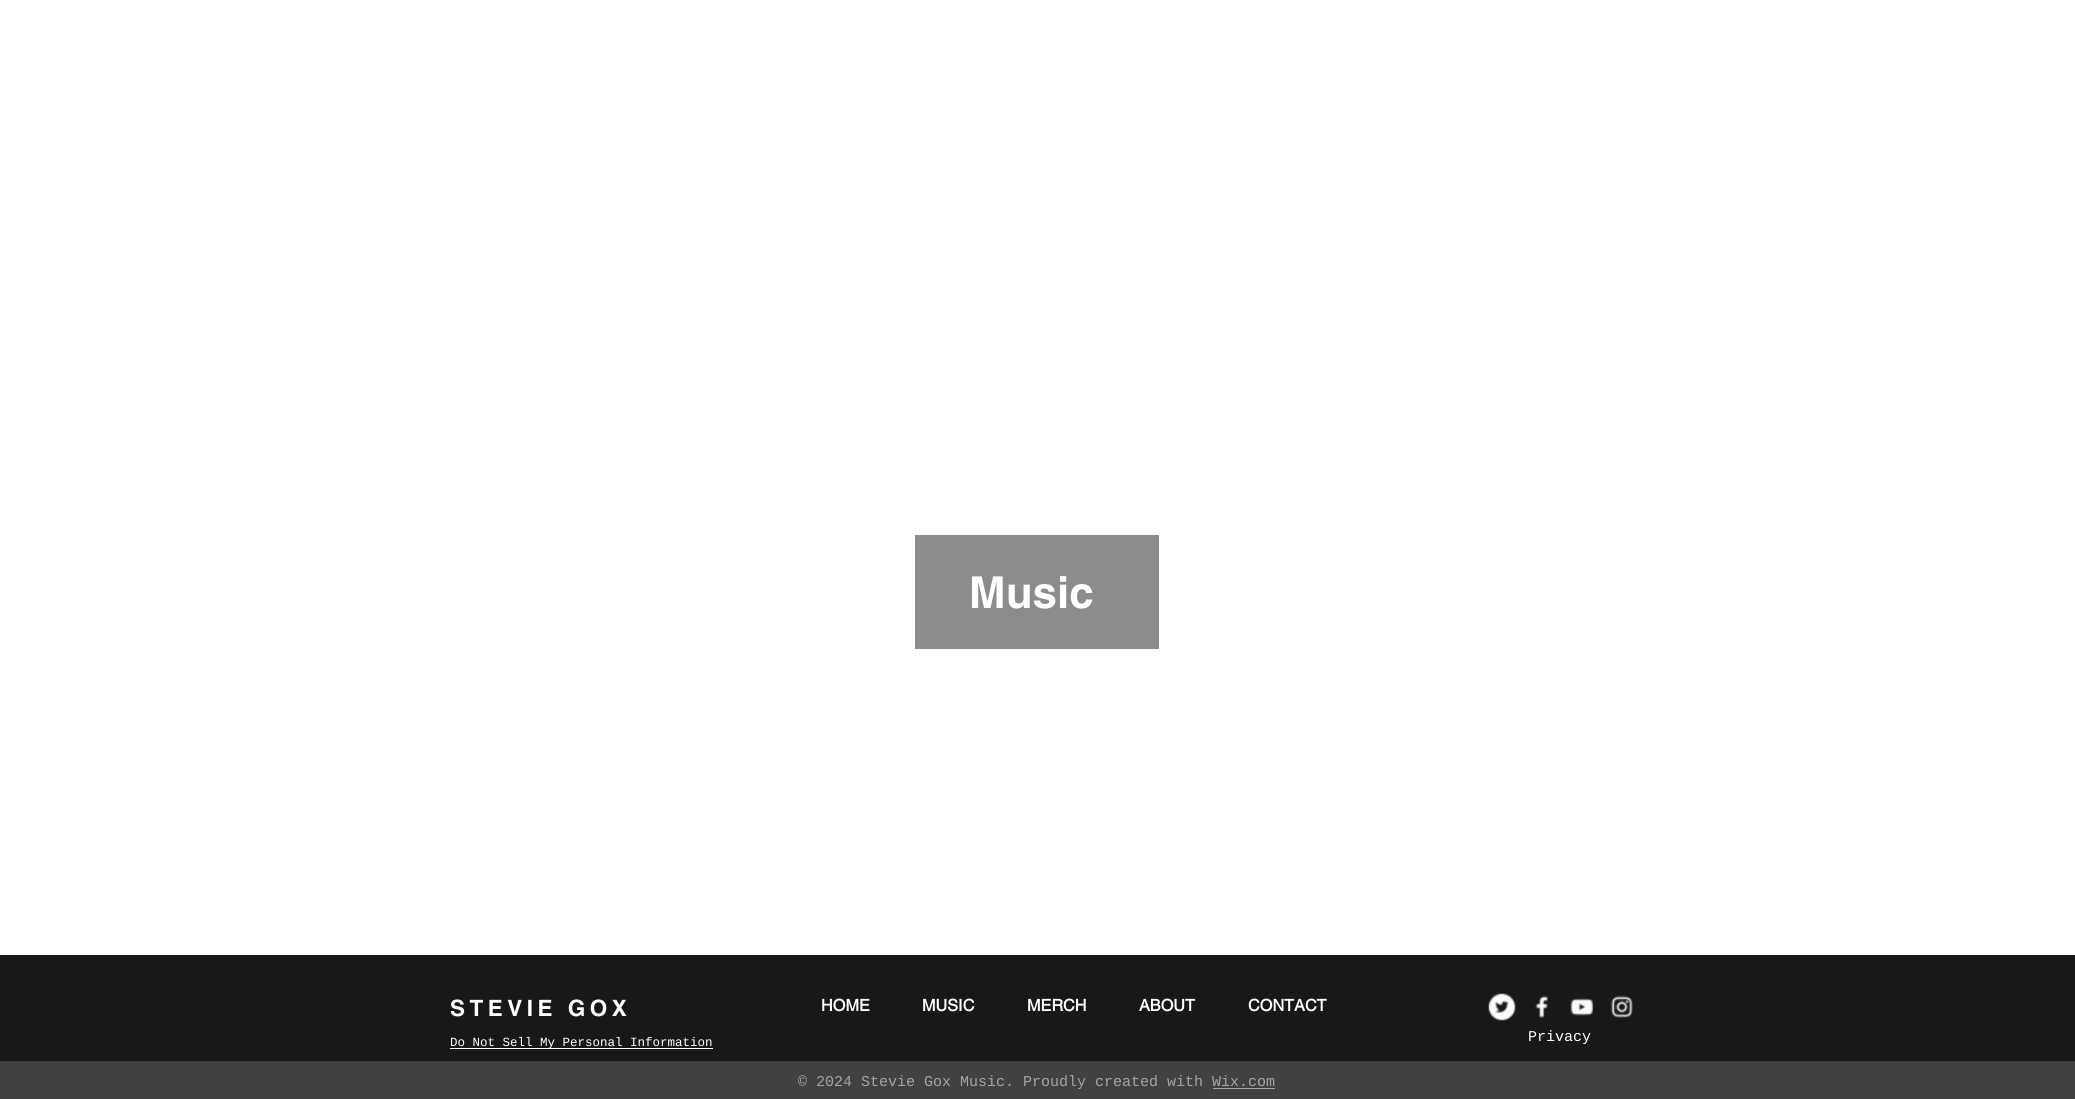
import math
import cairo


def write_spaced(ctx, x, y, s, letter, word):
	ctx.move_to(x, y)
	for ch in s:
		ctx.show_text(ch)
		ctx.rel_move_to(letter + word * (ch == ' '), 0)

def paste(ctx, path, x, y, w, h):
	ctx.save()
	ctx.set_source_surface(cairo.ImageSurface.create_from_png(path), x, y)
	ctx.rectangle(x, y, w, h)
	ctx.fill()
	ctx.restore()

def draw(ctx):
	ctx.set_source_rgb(1, 1, 1)
	ctx.paint()
	ctx.set_source_rgb(0.549, 0.549, 0.549)
	ctx.rectangle(915, 535, 244, 114)
	ctx.fill()
	ctx.select_font_face('helvetica', cairo.FONT_SLANT_NORMAL, cairo.FONT_WEIGHT_BOLD)
	ctx.set_font_size(44)
	ctx.set_source_rgb(1, 1, 1)
	ctx.move_to(969, 608)
	ctx.show_text('Music')
	ctx.set_source_rgb(0.094, 0.094, 0.094)
	ctx.rectangle(0, 955, 2075, 106)
	ctx.fill()
	ctx.set_font_size(22.5)
	ctx.set_source_rgb(1, 1, 1)
	write_spaced(ctx, 450, 1016, 'STEVIE GOX', 4.5, 0)
	ctx.select_font_face('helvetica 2', cairo.FONT_SLANT_NORMAL, cairo.FONT_WEIGHT_BOLD)
	ctx.set_font_size(16.25)
	for x, y, s in [
		(821, 1011, 'HOME'),
		(922, 1011, 'MUSIC'),
		(1027, 1011, 'MERCH'),
		(1139, 1011, 'ABOUT'),
		(1248, 1011, 'CONTACT'),
	]:
		ctx.move_to(x, y)
		ctx.show_text(s)
	paste(ctx, 'media/1.png', 1488, 993, 28, 28)
	paste(ctx, 'media/2.png', 1535, 995, 13, 23)
	paste(ctx, 'media/3.png', 1570, 998, 24, 18)
	paste(ctx, 'media/4.png', 1610, 995, 23, 23)
	ctx.rectangle(450, 1048, 263, 1)
	ctx.fill()
	ctx.select_font_face('Liberation Mono')
	ctx.set_font_size(12.5)
	ctx.move_to(450, 1046)
	ctx.show_text('Do Not Sell My Personal Information')
	ctx.set_font_size(15)
	ctx.move_to(1528, 1041)
	ctx.show_text('Privacy')
	ctx.set_source_rgb(0.255, 0.255, 0.255)
	ctx.rectangle(0, 1061, 2075, 38)
	ctx.fill()
	ctx.set_source_rgb(0.647, 0.647, 0.647)
	ctx.move_to(798, 1086)
	ctx.show_text('© 2024 Stevie Gox Music. Proudly created with Wix.com')
	ctx.rectangle(1213, 1088, 62, 1)
	ctx.fill()


surface = cairo.ImageSurface(cairo.FORMAT_RGB24, 2075, 1099)
ctx = cairo.Context(surface)
options = cairo.FontOptions()
options.set_hint_metrics(cairo.HINT_METRICS_OFF)
options.set_hint_style(cairo.HINT_STYLE_NONE)
ctx.set_font_options(options)
ctx.set_miter_limit(4)
draw(ctx)
surface.write_to_png('image.png')
